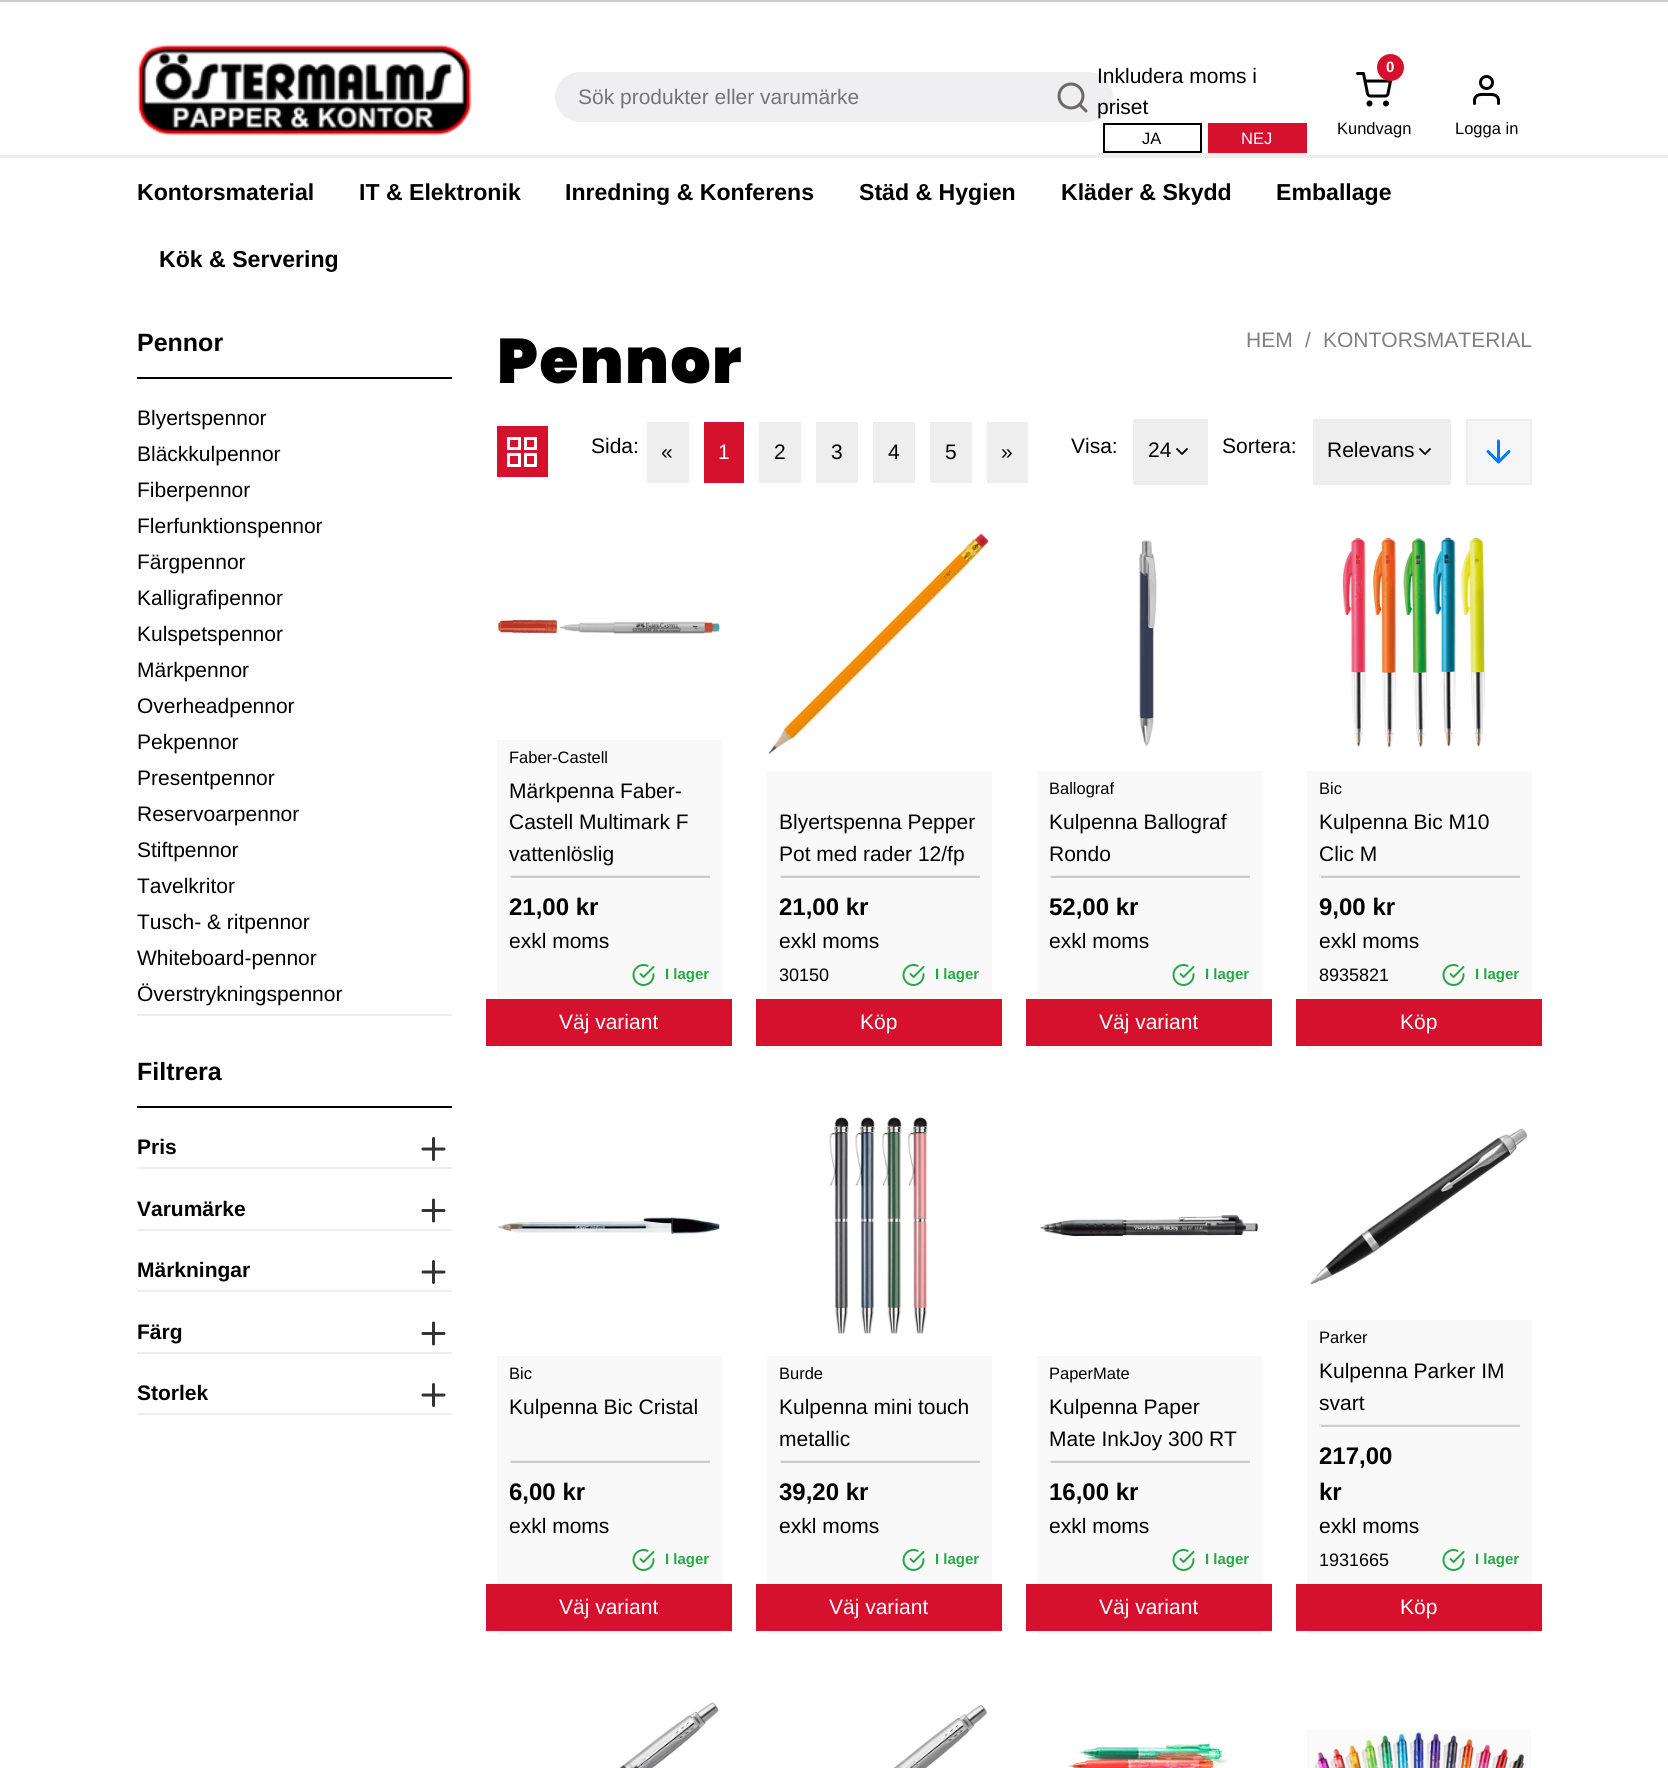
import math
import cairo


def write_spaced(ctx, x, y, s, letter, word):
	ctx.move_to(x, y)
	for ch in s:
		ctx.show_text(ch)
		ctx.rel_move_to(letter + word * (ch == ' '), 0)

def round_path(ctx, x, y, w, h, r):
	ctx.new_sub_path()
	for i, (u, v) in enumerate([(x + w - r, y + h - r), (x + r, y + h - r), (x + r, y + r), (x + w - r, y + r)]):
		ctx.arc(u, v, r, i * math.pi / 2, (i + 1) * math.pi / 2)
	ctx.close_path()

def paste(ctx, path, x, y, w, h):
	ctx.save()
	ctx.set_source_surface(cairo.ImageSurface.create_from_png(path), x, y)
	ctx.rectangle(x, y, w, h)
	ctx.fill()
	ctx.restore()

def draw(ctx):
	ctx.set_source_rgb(1, 1, 1)
	ctx.paint()
	ctx.set_source_rgb(0.8, 0.8, 0.8)
	ctx.rectangle(0, 0, 1668, 2)
	ctx.fill()
	paste(ctx, 'media/1.png', 137, 44, 335, 92)
	ctx.set_source_rgb(0.937, 0.937, 0.945)
	round_path(ctx, 555, 72, 558, 50, 25)
	ctx.fill()
	ctx.select_font_face('Liberation Sans')
	ctx.set_font_size(21)
	ctx.set_source_rgb(0.459, 0.459, 0.459)
	ctx.move_to(578, 104)
	ctx.show_text('Sök produkter eller varumärke')
	ctx.new_path()
	ctx.arc(1071, 96, 12, 0, 2 * math.pi)
	ctx.set_source_rgb(0.424, 0.412, 0.412)
	ctx.set_line_width(3)
	ctx.stroke()
	ctx.new_path()
	ctx.move_to(1086, 111)
	ctx.line_to(1079.5, 104.5)
	ctx.set_line_cap(cairo.LINE_CAP_ROUND)
	ctx.set_line_join(cairo.LINE_JOIN_ROUND)
	ctx.stroke()
	ctx.set_source_rgb(0.933, 0.933, 0.933)
	ctx.rectangle(1097, 153, 210, 2)
	ctx.fill()
	ctx.set_source_rgb(0, 0, 0)
	ctx.move_to(1097, 83)
	ctx.show_text('Inkludera moms i')
	ctx.move_to(1097, 114)
	ctx.show_text('priset')
	ctx.rectangle(1104, 124, 97, 28)
	ctx.set_line_width(2)
	ctx.set_line_cap(cairo.LINE_CAP_BUTT)
	ctx.set_line_join(cairo.LINE_JOIN_MITER)
	ctx.stroke()
	ctx.set_font_size(16.5)
	ctx.move_to(1142, 144)
	ctx.show_text('JA')
	ctx.set_source_rgb(0.835, 0.067, 0.18)
	ctx.rectangle(1208, 123, 99, 30)
	ctx.fill()
	ctx.set_source_rgb(1, 1, 1)
	ctx.move_to(1241, 144)
	ctx.show_text('NEJ')
	ctx.new_path()
	ctx.move_to(1357.5, 73.5)
	ctx.line_to(1363.5, 73.5)
	ctx.line_to(1367.5, 93.5)
	ctx.curve_to(1368, 95, 1369, 96, 1370.5, 96)
	ctx.line_to(1385, 96)
	ctx.curve_to(1386.5, 96, 1388, 95, 1388, 93.5)
	ctx.line_to(1390.5, 81)
	ctx.line_to(1365, 81)
	ctx.set_source_rgb(0, 0, 0)
	ctx.set_line_width(3)
	ctx.set_line_cap(cairo.LINE_CAP_ROUND)
	ctx.set_line_join(cairo.LINE_JOIN_ROUND)
	ctx.stroke()
	ctx.set_source_rgb(0.835, 0.067, 0.18)
	ctx.arc(1390.5, 67.5, 13.5, 0, 2 * math.pi)
	ctx.fill()
	ctx.select_font_face('Liberation Sans', cairo.FONT_SLANT_NORMAL, cairo.FONT_WEIGHT_BOLD)
	ctx.set_font_size(15)
	ctx.set_source_rgb(1, 1, 1)
	ctx.move_to(1386, 72)
	ctx.show_text('0')
	ctx.new_path()
	ctx.arc(1369.5, 103.5, 1.5, 0, 2 * math.pi)
	ctx.set_source_rgb(0, 0, 0)
	ctx.set_line_cap(cairo.LINE_CAP_BUTT)
	ctx.set_line_join(cairo.LINE_JOIN_MITER)
	ctx.stroke()
	ctx.arc(1386, 103.5, 1.5, 0, 2 * math.pi)
	ctx.stroke()
	ctx.select_font_face('Liberation Sans')
	ctx.set_font_size(16.5)
	ctx.move_to(1337, 134)
	ctx.show_text('Kundvagn')
	ctx.new_path()
	ctx.move_to(1498.5, 103.5)
	ctx.line_to(1498.5, 99.5)
	ctx.curve_to(1497, 93.5, 1491, 94.5, 1486.5, 94.5)
	ctx.curve_to(1482, 94.5, 1476, 93.5, 1474.5, 99.5)
	ctx.line_to(1474.5, 103.5)
	ctx.set_line_cap(cairo.LINE_CAP_ROUND)
	ctx.set_line_join(cairo.LINE_JOIN_ROUND)
	ctx.stroke()
	ctx.arc(1486.5, 82.5, 6, 0, 2 * math.pi)
	ctx.set_line_cap(cairo.LINE_CAP_BUTT)
	ctx.set_line_join(cairo.LINE_JOIN_MITER)
	ctx.stroke()
	ctx.move_to(1455, 134)
	ctx.show_text('Logga in')
	ctx.set_source_rgb(0.933, 0.933, 0.933)
	ctx.rectangle(0, 155, 1668, 3)
	ctx.fill()
	ctx.select_font_face('Liberation Sans', cairo.FONT_SLANT_NORMAL, cairo.FONT_WEIGHT_BOLD)
	ctx.set_font_size(23.1)
	ctx.set_source_rgb(0, 0, 0)
	for x, y, s in [
		(137, 200, 'Kontorsmaterial'),
		(359, 200, 'IT & Elektronik'),
		(565, 200, 'Inredning & Konferens'),
		(859, 200, 'Städ & Hygien'),
		(1061, 200, 'Kläder & Skydd'),
		(1276, 200, 'Emballage'),
		(159, 267, 'Kök & Servering'),
	]:
		ctx.move_to(x, y)
		ctx.show_text(s)
	ctx.rectangle(137, 377, 315, 2)
	ctx.fill()
	ctx.set_font_size(25)
	ctx.move_to(137, 351)
	ctx.show_text('Pennor')
	ctx.set_source_rgb(0.933, 0.933, 0.933)
	ctx.rectangle(137, 1014, 315, 2)
	ctx.fill()
	ctx.select_font_face('Liberation Sans')
	ctx.set_font_size(21)
	ctx.set_source_rgb(0, 0, 0)
	for x, y, s in [
		(137, 425, 'Blyertspennor'),
		(137, 461, 'Bläckkulpennor'),
		(137, 497, 'Fiberpennor'),
		(137, 533, 'Flerfunktionspennor'),
		(137, 569, 'Färgpennor'),
		(137, 605, 'Kalligrafipennor'),
		(137, 641, 'Kulspetspennor'),
		(137, 677, 'Märkpennor'),
		(137, 713, 'Overheadpennor'),
		(137, 749, 'Pekpennor'),
		(137, 785, 'Presentpennor'),
		(137, 821, 'Reservoarpennor'),
		(137, 857, 'Stiftpennor'),
		(137, 893, 'Tavelkritor'),
		(137, 929, 'Tusch- & ritpennor'),
		(137, 965, 'Whiteboard-pennor'),
		(137, 1001, 'Överstrykningspennor'),
	]:
		ctx.move_to(x, y)
		ctx.show_text(s)
	ctx.rectangle(137, 1106, 315, 2)
	ctx.fill()
	ctx.select_font_face('Liberation Sans', cairo.FONT_SLANT_NORMAL, cairo.FONT_WEIGHT_BOLD)
	ctx.set_font_size(25)
	ctx.move_to(137, 1080)
	ctx.show_text('Filtrera')
	ctx.set_source_rgb(0.933, 0.933, 0.933)
	ctx.rectangle(137, 1167, 315, 2)
	ctx.fill()
	ctx.set_font_size(21)
	ctx.set_source_rgb(0, 0, 0)
	ctx.move_to(137, 1154)
	ctx.show_text('Pris')
	ctx.new_path()
	ctx.move_to(433.5, 1138.5)
	ctx.line_to(433.5, 1159.5)
	ctx.move_to(423, 1149)
	ctx.line_to(444, 1149)
	ctx.set_source_rgb(0.2, 0.2, 0.2)
	ctx.set_line_cap(cairo.LINE_CAP_ROUND)
	ctx.set_line_join(cairo.LINE_JOIN_ROUND)
	ctx.stroke()
	ctx.set_source_rgb(0.933, 0.933, 0.933)
	ctx.rectangle(137, 1229, 315, 2)
	ctx.fill()
	ctx.set_source_rgb(0, 0, 0)
	ctx.move_to(137, 1216)
	ctx.show_text('Varumärke')
	ctx.new_path()
	ctx.move_to(433.5, 1200)
	ctx.line_to(433.5, 1221)
	ctx.move_to(423, 1210.5)
	ctx.line_to(444, 1210.5)
	ctx.set_source_rgb(0.2, 0.2, 0.2)
	ctx.stroke()
	ctx.set_source_rgb(0.933, 0.933, 0.933)
	ctx.rectangle(137, 1290, 315, 2)
	ctx.fill()
	ctx.set_source_rgb(0, 0, 0)
	ctx.move_to(137, 1277)
	ctx.show_text('Märkningar')
	ctx.new_path()
	ctx.move_to(433.5, 1261.5)
	ctx.line_to(433.5, 1282.5)
	ctx.move_to(423, 1272)
	ctx.line_to(444, 1272)
	ctx.set_source_rgb(0.2, 0.2, 0.2)
	ctx.stroke()
	ctx.set_source_rgb(0.933, 0.933, 0.933)
	ctx.rectangle(137, 1352, 315, 2)
	ctx.fill()
	ctx.set_source_rgb(0, 0, 0)
	ctx.move_to(137, 1339)
	ctx.show_text('Färg')
	ctx.new_path()
	ctx.move_to(433.5, 1323)
	ctx.line_to(433.5, 1344)
	ctx.move_to(423, 1333.5)
	ctx.line_to(444, 1333.5)
	ctx.set_source_rgb(0.2, 0.2, 0.2)
	ctx.stroke()
	ctx.set_source_rgb(0.933, 0.933, 0.933)
	ctx.rectangle(137, 1413, 315, 2)
	ctx.fill()
	ctx.set_source_rgb(0, 0, 0)
	ctx.move_to(137, 1400)
	ctx.show_text('Storlek')
	ctx.new_path()
	ctx.move_to(433.5, 1384.5)
	ctx.line_to(433.5, 1405.5)
	ctx.move_to(423, 1395)
	ctx.line_to(444, 1395)
	ctx.set_source_rgb(0.2, 0.2, 0.2)
	ctx.stroke()
	ctx.select_font_face('Poppins Black')
	ctx.set_font_size(63)
	ctx.set_source_rgb(0, 0, 0)
	write_spaced(ctx, 497, 383, 'Pennor', 1.5, 0)
	ctx.select_font_face('Liberation Sans')
	ctx.set_font_size(21)
	ctx.set_source_rgb(0.502, 0.502, 0.502)
	for x, y, s in [
		(1246, 347, 'HEM'),
		(1305, 347, '/'),
		(1323, 347, 'KONTORSMATERIAL'),
	]:
		ctx.move_to(x, y)
		ctx.show_text(s)
	ctx.set_source_rgb(0.835, 0.067, 0.18)
	ctx.rectangle(497, 426, 51, 51)
	ctx.fill()
	ctx.rectangle(508.5, 438.5, 11, 10)
	ctx.set_source_rgb(1, 1, 1)
	ctx.set_line_cap(cairo.LINE_CAP_BUTT)
	ctx.set_line_join(cairo.LINE_JOIN_MITER)
	ctx.stroke()
	ctx.rectangle(525.5, 438.5, 10, 10)
	ctx.stroke()
	ctx.rectangle(508.5, 454.5, 11, 11)
	ctx.stroke()
	ctx.rectangle(525.5, 454.5, 10, 11)
	ctx.stroke()
	ctx.set_source_rgb(0, 0, 0)
	ctx.move_to(591, 453)
	ctx.show_text('Sida:')
	ctx.set_source_rgb(0.933, 0.933, 0.933)
	ctx.rectangle(647, 422, 42, 61)
	ctx.fill()
	ctx.set_source_rgb(0, 0, 0)
	ctx.move_to(661, 459)
	ctx.show_text('«')
	ctx.set_source_rgb(0.835, 0.067, 0.18)
	ctx.rectangle(704, 422, 40, 61)
	ctx.fill()
	ctx.set_source_rgb(1, 1, 1)
	ctx.move_to(718, 459)
	ctx.show_text('1')
	ctx.set_source_rgb(0.933, 0.933, 0.933)
	ctx.rectangle(759, 422, 42, 61)
	ctx.fill()
	ctx.set_source_rgb(0, 0, 0)
	ctx.move_to(774, 459)
	ctx.show_text('2')
	ctx.set_source_rgb(0.933, 0.933, 0.933)
	ctx.rectangle(816, 422, 42, 61)
	ctx.fill()
	ctx.set_source_rgb(0, 0, 0)
	ctx.move_to(831, 459)
	ctx.show_text('3')
	ctx.set_source_rgb(0.933, 0.933, 0.933)
	ctx.rectangle(873, 422, 42, 61)
	ctx.fill()
	ctx.set_source_rgb(0, 0, 0)
	ctx.move_to(888, 459)
	ctx.show_text('4')
	ctx.set_source_rgb(0.933, 0.933, 0.933)
	ctx.rectangle(930, 422, 42, 61)
	ctx.fill()
	ctx.set_source_rgb(0, 0, 0)
	ctx.move_to(945, 459)
	ctx.show_text('5')
	ctx.set_source_rgb(0.933, 0.933, 0.933)
	ctx.rectangle(987, 422, 41, 61)
	ctx.fill()
	ctx.set_source_rgb(0, 0, 0)
	ctx.move_to(1001, 459)
	ctx.show_text('»')
	ctx.move_to(1071, 453)
	ctx.show_text('Visa:')
	ctx.set_source_rgb(0.933, 0.933, 0.933)
	ctx.rectangle(1133, 419, 75, 66)
	ctx.fill()
	ctx.set_source_rgb(0, 0, 0)
	ctx.move_to(1148, 457)
	ctx.show_text('24')
	ctx.new_path()
	ctx.move_to(1177, 449)
	ctx.line_to(1182, 454)
	ctx.line_to(1187, 449)
	ctx.set_line_width(1.8)
	ctx.set_line_cap(cairo.LINE_CAP_ROUND)
	ctx.set_line_join(cairo.LINE_JOIN_ROUND)
	ctx.stroke()
	ctx.move_to(1222, 453)
	ctx.show_text('Sortera:')
	ctx.set_source_rgb(0.933, 0.933, 0.933)
	ctx.rectangle(1313, 419, 138, 66)
	ctx.fill()
	ctx.set_source_rgb(0, 0, 0)
	ctx.move_to(1327, 457)
	ctx.show_text('Relevans')
	ctx.new_path()
	ctx.move_to(1420, 449)
	ctx.line_to(1425, 454)
	ctx.line_to(1430, 449)
	ctx.stroke()
	ctx.set_source_rgb(0.961, 0.961, 0.961)
	ctx.rectangle(1467, 420, 64, 64)
	ctx.fill_preserve()
	ctx.set_source_rgb(0.933, 0.933, 0.933)
	ctx.set_line_width(2)
	ctx.set_line_cap(cairo.LINE_CAP_BUTT)
	ctx.set_line_join(cairo.LINE_JOIN_MITER)
	ctx.stroke()
	ctx.new_path()
	ctx.move_to(1498.5, 441)
	ctx.line_to(1498.5, 462)
	ctx.move_to(1509, 451.5)
	ctx.line_to(1498.5, 462)
	ctx.line_to(1488, 451.5)
	ctx.set_source_rgb(0, 0.482, 1)
	ctx.set_line_width(3)
	ctx.set_line_cap(cairo.LINE_CAP_ROUND)
	ctx.set_line_join(cairo.LINE_JOIN_ROUND)
	ctx.stroke()
	paste(ctx, 'media/2.png', 497, 617, 224, 18)
	ctx.set_source_rgb(0.976, 0.976, 0.976)
	ctx.rectangle(497, 740, 225, 310)
	ctx.fill()
	ctx.set_font_size(16.5)
	ctx.set_source_rgb(0, 0, 0)
	ctx.move_to(509, 763)
	ctx.show_text('Faber-Castell')
	ctx.set_font_size(21)
	for x, y, s in [
		(509, 798, 'Märkpenna Faber-'),
		(509, 829, 'Castell Multimark F'),
		(509, 861, 'vattenlöslig'),
	]:
		ctx.move_to(x, y)
		ctx.show_text(s)
	ctx.set_source_rgb(0.933, 0.933, 0.933)
	ctx.rectangle(509, 875, 201, 1)
	ctx.rectangle(708, 875, 2, 3)
	ctx.fill()
	ctx.set_source_rgb(0.8, 0.8, 0.8)
	ctx.rectangle(509, 876, 201, 2)
	ctx.fill()
	ctx.set_source_rgb(0.933, 0.933, 0.933)
	ctx.rectangle(509, 875, 2, 3)
	ctx.fill()
	ctx.select_font_face('Liberation Sans', cairo.FONT_SLANT_NORMAL, cairo.FONT_WEIGHT_BOLD)
	ctx.set_font_size(24)
	ctx.set_source_rgb(0, 0, 0)
	ctx.move_to(509, 915)
	ctx.show_text('21,00 kr')
	ctx.select_font_face('Liberation Sans')
	ctx.set_font_size(21)
	ctx.move_to(509, 948)
	ctx.show_text('exkl moms')
	paste(ctx, 'media/3.png', 632, 964, 23, 22)
	ctx.select_font_face('Liberation Sans', cairo.FONT_SLANT_NORMAL, cairo.FONT_WEIGHT_BOLD)
	ctx.set_font_size(15)
	ctx.set_source_rgb(0.157, 0.655, 0.271)
	ctx.move_to(665, 979)
	ctx.show_text('I lager')
	ctx.set_source_rgb(0.835, 0.067, 0.18)
	ctx.rectangle(486, 999, 246, 47)
	ctx.fill()
	ctx.select_font_face('Liberation Sans')
	ctx.set_font_size(21)
	ctx.set_source_rgb(1, 1, 1)
	ctx.move_to(559, 1029)
	ctx.show_text('Väj variant')
	paste(ctx, 'media/4.png', 768, 533, 221, 221)
	ctx.set_source_rgb(0.976, 0.976, 0.976)
	ctx.rectangle(767, 771, 225, 279)
	ctx.fill()
	ctx.set_source_rgb(0, 0, 0)
	ctx.move_to(779, 829)
	ctx.show_text('Blyertspenna Pepper')
	ctx.move_to(779, 861)
	ctx.show_text('Pot med rader 12/fp')
	ctx.set_source_rgb(0.933, 0.933, 0.933)
	ctx.rectangle(779, 875, 201, 1)
	ctx.rectangle(978, 875, 2, 3)
	ctx.fill()
	ctx.set_source_rgb(0.8, 0.8, 0.8)
	ctx.rectangle(779, 876, 201, 2)
	ctx.fill()
	ctx.set_source_rgb(0.933, 0.933, 0.933)
	ctx.rectangle(779, 875, 2, 3)
	ctx.fill()
	ctx.select_font_face('Liberation Sans', cairo.FONT_SLANT_NORMAL, cairo.FONT_WEIGHT_BOLD)
	ctx.set_font_size(24)
	ctx.set_source_rgb(0, 0, 0)
	ctx.move_to(779, 915)
	ctx.show_text('21,00 kr')
	ctx.select_font_face('Liberation Sans')
	ctx.set_font_size(21)
	ctx.move_to(779, 948)
	ctx.show_text('exkl moms')
	ctx.set_font_size(18)
	ctx.move_to(779, 981)
	ctx.show_text('30150')
	paste(ctx, 'media/3.png', 902, 964, 23, 22)
	ctx.select_font_face('Liberation Sans', cairo.FONT_SLANT_NORMAL, cairo.FONT_WEIGHT_BOLD)
	ctx.set_font_size(15)
	ctx.set_source_rgb(0.157, 0.655, 0.271)
	ctx.move_to(935, 979)
	ctx.show_text('I lager')
	ctx.set_source_rgb(0.835, 0.067, 0.18)
	ctx.rectangle(756, 999, 246, 47)
	ctx.fill()
	ctx.select_font_face('Liberation Sans')
	ctx.set_font_size(21)
	ctx.set_source_rgb(1, 1, 1)
	ctx.move_to(860, 1029)
	ctx.show_text('Köp')
	paste(ctx, 'media/5.png', 1138, 540, 19, 207)
	ctx.set_source_rgb(0.976, 0.976, 0.976)
	ctx.rectangle(1037, 771, 225, 279)
	ctx.fill()
	ctx.set_font_size(16.5)
	ctx.set_source_rgb(0, 0, 0)
	ctx.move_to(1049, 794)
	ctx.show_text('Ballograf')
	ctx.set_font_size(21)
	ctx.move_to(1049, 829)
	ctx.show_text('Kulpenna Ballograf')
	ctx.move_to(1049, 861)
	ctx.show_text('Rondo')
	ctx.set_source_rgb(0.933, 0.933, 0.933)
	ctx.rectangle(1049, 875, 201, 1)
	ctx.rectangle(1248, 875, 2, 3)
	ctx.fill()
	ctx.set_source_rgb(0.8, 0.8, 0.8)
	ctx.rectangle(1049, 876, 201, 2)
	ctx.fill()
	ctx.set_source_rgb(0.933, 0.933, 0.933)
	ctx.rectangle(1049, 875, 2, 3)
	ctx.fill()
	ctx.select_font_face('Liberation Sans', cairo.FONT_SLANT_NORMAL, cairo.FONT_WEIGHT_BOLD)
	ctx.set_font_size(24)
	ctx.set_source_rgb(0, 0, 0)
	ctx.move_to(1049, 915)
	ctx.show_text('52,00 kr')
	ctx.select_font_face('Liberation Sans')
	ctx.set_font_size(21)
	ctx.move_to(1049, 948)
	ctx.show_text('exkl moms')
	paste(ctx, 'media/3.png', 1172, 964, 23, 22)
	ctx.select_font_face('Liberation Sans', cairo.FONT_SLANT_NORMAL, cairo.FONT_WEIGHT_BOLD)
	ctx.set_font_size(15)
	ctx.set_source_rgb(0.157, 0.655, 0.271)
	ctx.move_to(1205, 979)
	ctx.show_text('I lager')
	ctx.set_source_rgb(0.835, 0.067, 0.18)
	ctx.rectangle(1026, 999, 246, 47)
	ctx.fill()
	ctx.select_font_face('Liberation Sans')
	ctx.set_font_size(21)
	ctx.set_source_rgb(1, 1, 1)
	ctx.move_to(1099, 1029)
	ctx.show_text('Väj variant')
	paste(ctx, 'media/6.png', 1342, 537, 144, 211)
	ctx.set_source_rgb(0.976, 0.976, 0.976)
	ctx.rectangle(1307, 771, 225, 279)
	ctx.fill()
	ctx.set_font_size(16.5)
	ctx.set_source_rgb(0, 0, 0)
	ctx.move_to(1319, 794)
	ctx.show_text('Bic')
	ctx.set_font_size(21)
	ctx.move_to(1319, 829)
	ctx.show_text('Kulpenna Bic M10')
	ctx.move_to(1319, 861)
	ctx.show_text('Clic M')
	ctx.set_source_rgb(0.933, 0.933, 0.933)
	ctx.rectangle(1319, 875, 201, 1)
	ctx.rectangle(1518, 875, 2, 3)
	ctx.fill()
	ctx.set_source_rgb(0.8, 0.8, 0.8)
	ctx.rectangle(1319, 876, 201, 2)
	ctx.fill()
	ctx.set_source_rgb(0.933, 0.933, 0.933)
	ctx.rectangle(1319, 875, 2, 3)
	ctx.fill()
	ctx.select_font_face('Liberation Sans', cairo.FONT_SLANT_NORMAL, cairo.FONT_WEIGHT_BOLD)
	ctx.set_font_size(24)
	ctx.set_source_rgb(0, 0, 0)
	ctx.move_to(1319, 915)
	ctx.show_text('9,00 kr')
	ctx.select_font_face('Liberation Sans')
	ctx.set_font_size(21)
	ctx.move_to(1319, 948)
	ctx.show_text('exkl moms')
	ctx.set_font_size(18)
	ctx.move_to(1319, 981)
	ctx.show_text('8935821')
	paste(ctx, 'media/3.png', 1442, 964, 23, 22)
	ctx.select_font_face('Liberation Sans', cairo.FONT_SLANT_NORMAL, cairo.FONT_WEIGHT_BOLD)
	ctx.set_font_size(15)
	ctx.set_source_rgb(0.157, 0.655, 0.271)
	ctx.move_to(1475, 979)
	ctx.show_text('I lager')
	ctx.set_source_rgb(0.835, 0.067, 0.18)
	ctx.rectangle(1296, 999, 246, 47)
	ctx.fill()
	ctx.select_font_face('Liberation Sans')
	ctx.set_font_size(21)
	ctx.set_source_rgb(1, 1, 1)
	ctx.move_to(1400, 1029)
	ctx.show_text('Köp')
	paste(ctx, 'media/7.png', 498, 1217, 222, 18)
	ctx.set_source_rgb(0.976, 0.976, 0.976)
	ctx.rectangle(497, 1356, 225, 279)
	ctx.fill()
	ctx.set_font_size(16.5)
	ctx.set_source_rgb(0, 0, 0)
	ctx.move_to(509, 1379)
	ctx.show_text('Bic')
	ctx.set_font_size(21)
	ctx.move_to(509, 1414)
	ctx.show_text('Kulpenna Bic Cristal')
	ctx.set_source_rgb(0.933, 0.933, 0.933)
	ctx.rectangle(509, 1460, 201, 1)
	ctx.rectangle(708, 1460, 2, 3)
	ctx.fill()
	ctx.set_source_rgb(0.8, 0.8, 0.8)
	ctx.rectangle(509, 1461, 201, 2)
	ctx.fill()
	ctx.set_source_rgb(0.933, 0.933, 0.933)
	ctx.rectangle(509, 1460, 2, 3)
	ctx.fill()
	ctx.select_font_face('Liberation Sans', cairo.FONT_SLANT_NORMAL, cairo.FONT_WEIGHT_BOLD)
	ctx.set_font_size(24)
	ctx.set_source_rgb(0, 0, 0)
	ctx.move_to(509, 1500)
	ctx.show_text('6,00 kr')
	ctx.select_font_face('Liberation Sans')
	ctx.set_font_size(21)
	ctx.move_to(509, 1533)
	ctx.show_text('exkl moms')
	paste(ctx, 'media/3.png', 632, 1549, 23, 22)
	ctx.select_font_face('Liberation Sans', cairo.FONT_SLANT_NORMAL, cairo.FONT_WEIGHT_BOLD)
	ctx.set_font_size(15)
	ctx.set_source_rgb(0.157, 0.655, 0.271)
	ctx.move_to(665, 1564)
	ctx.show_text('I lager')
	ctx.set_source_rgb(0.835, 0.067, 0.18)
	ctx.rectangle(486, 1584, 246, 47)
	ctx.fill()
	ctx.select_font_face('Liberation Sans')
	ctx.set_font_size(21)
	ctx.set_source_rgb(1, 1, 1)
	ctx.move_to(559, 1614)
	ctx.show_text('Väj variant')
	paste(ctx, 'media/8.png', 829, 1117, 99, 217)
	ctx.set_source_rgb(0.976, 0.976, 0.976)
	ctx.rectangle(767, 1356, 225, 279)
	ctx.fill()
	ctx.set_font_size(16.5)
	ctx.set_source_rgb(0, 0, 0)
	ctx.move_to(779, 1379)
	ctx.show_text('Burde')
	ctx.set_font_size(21)
	ctx.move_to(779, 1414)
	ctx.show_text('Kulpenna mini touch')
	ctx.move_to(779, 1446)
	ctx.show_text('metallic')
	ctx.set_source_rgb(0.933, 0.933, 0.933)
	ctx.rectangle(779, 1460, 201, 1)
	ctx.rectangle(978, 1460, 2, 3)
	ctx.fill()
	ctx.set_source_rgb(0.8, 0.8, 0.8)
	ctx.rectangle(779, 1461, 201, 2)
	ctx.fill()
	ctx.set_source_rgb(0.933, 0.933, 0.933)
	ctx.rectangle(779, 1460, 2, 3)
	ctx.fill()
	ctx.select_font_face('Liberation Sans', cairo.FONT_SLANT_NORMAL, cairo.FONT_WEIGHT_BOLD)
	ctx.set_font_size(24)
	ctx.set_source_rgb(0, 0, 0)
	ctx.move_to(779, 1500)
	ctx.show_text('39,20 kr')
	ctx.select_font_face('Liberation Sans')
	ctx.set_font_size(21)
	ctx.move_to(779, 1533)
	ctx.show_text('exkl moms')
	paste(ctx, 'media/3.png', 902, 1549, 23, 22)
	ctx.select_font_face('Liberation Sans', cairo.FONT_SLANT_NORMAL, cairo.FONT_WEIGHT_BOLD)
	ctx.set_font_size(15)
	ctx.set_source_rgb(0.157, 0.655, 0.271)
	ctx.move_to(935, 1564)
	ctx.show_text('I lager')
	ctx.set_source_rgb(0.835, 0.067, 0.18)
	ctx.rectangle(756, 1584, 246, 47)
	ctx.fill()
	ctx.select_font_face('Liberation Sans')
	ctx.set_font_size(21)
	ctx.set_source_rgb(1, 1, 1)
	ctx.move_to(829, 1614)
	ctx.show_text('Väj variant')
	paste(ctx, 'media/9.png', 1040, 1214, 218, 23)
	ctx.set_source_rgb(0.976, 0.976, 0.976)
	ctx.rectangle(1037, 1356, 225, 279)
	ctx.fill()
	ctx.set_font_size(16.5)
	ctx.set_source_rgb(0, 0, 0)
	ctx.move_to(1049, 1379)
	ctx.show_text('PaperMate')
	ctx.set_font_size(21)
	ctx.move_to(1049, 1414)
	ctx.show_text('Kulpenna Paper')
	ctx.move_to(1049, 1446)
	ctx.show_text('Mate InkJoy 300 RT')
	ctx.set_source_rgb(0.933, 0.933, 0.933)
	ctx.rectangle(1049, 1460, 201, 1)
	ctx.rectangle(1248, 1460, 2, 3)
	ctx.fill()
	ctx.set_source_rgb(0.8, 0.8, 0.8)
	ctx.rectangle(1049, 1461, 201, 2)
	ctx.fill()
	ctx.set_source_rgb(0.933, 0.933, 0.933)
	ctx.rectangle(1049, 1460, 2, 3)
	ctx.fill()
	ctx.select_font_face('Liberation Sans', cairo.FONT_SLANT_NORMAL, cairo.FONT_WEIGHT_BOLD)
	ctx.set_font_size(24)
	ctx.set_source_rgb(0, 0, 0)
	ctx.move_to(1049, 1500)
	ctx.show_text('16,00 kr')
	ctx.select_font_face('Liberation Sans')
	ctx.set_font_size(21)
	ctx.move_to(1049, 1533)
	ctx.show_text('exkl moms')
	paste(ctx, 'media/3.png', 1172, 1549, 23, 22)
	ctx.select_font_face('Liberation Sans', cairo.FONT_SLANT_NORMAL, cairo.FONT_WEIGHT_BOLD)
	ctx.set_font_size(15)
	ctx.set_source_rgb(0.157, 0.655, 0.271)
	ctx.move_to(1205, 1564)
	ctx.show_text('I lager')
	ctx.set_source_rgb(0.835, 0.067, 0.18)
	ctx.rectangle(1026, 1584, 246, 47)
	ctx.fill()
	ctx.select_font_face('Liberation Sans')
	ctx.set_font_size(21)
	ctx.set_source_rgb(1, 1, 1)
	ctx.move_to(1099, 1614)
	ctx.show_text('Väj variant')
	paste(ctx, 'media/10.png', 1310, 1128, 218, 157)
	ctx.set_source_rgb(0.976, 0.976, 0.976)
	ctx.rectangle(1307, 1320, 225, 315)
	ctx.fill()
	ctx.set_font_size(16.5)
	ctx.set_source_rgb(0, 0, 0)
	ctx.move_to(1319, 1343)
	ctx.show_text('Parker')
	ctx.set_font_size(21)
	ctx.move_to(1319, 1378)
	ctx.show_text('Kulpenna Parker IM')
	ctx.move_to(1319, 1410)
	ctx.show_text('svart')
	ctx.set_source_rgb(0.933, 0.933, 0.933)
	ctx.rectangle(1319, 1424, 201, 1)
	ctx.rectangle(1518, 1424, 2, 3)
	ctx.fill()
	ctx.set_source_rgb(0.8, 0.8, 0.8)
	ctx.rectangle(1319, 1425, 201, 2)
	ctx.fill()
	ctx.set_source_rgb(0.933, 0.933, 0.933)
	ctx.rectangle(1319, 1424, 2, 3)
	ctx.fill()
	ctx.select_font_face('Liberation Sans', cairo.FONT_SLANT_NORMAL, cairo.FONT_WEIGHT_BOLD)
	ctx.set_font_size(24)
	ctx.set_source_rgb(0, 0, 0)
	ctx.move_to(1319, 1464)
	ctx.show_text('217,00')
	ctx.move_to(1319, 1500)
	ctx.show_text('kr')
	ctx.select_font_face('Liberation Sans')
	ctx.set_font_size(21)
	ctx.move_to(1319, 1533)
	ctx.show_text('exkl moms')
	ctx.set_font_size(18)
	ctx.move_to(1319, 1566)
	ctx.show_text('1931665')
	paste(ctx, 'media/3.png', 1442, 1549, 23, 22)
	ctx.select_font_face('Liberation Sans', cairo.FONT_SLANT_NORMAL, cairo.FONT_WEIGHT_BOLD)
	ctx.set_font_size(15)
	ctx.set_source_rgb(0.157, 0.655, 0.271)
	ctx.move_to(1475, 1564)
	ctx.show_text('I lager')
	ctx.set_source_rgb(0.835, 0.067, 0.18)
	ctx.rectangle(1296, 1584, 246, 47)
	ctx.fill()
	ctx.select_font_face('Liberation Sans')
	ctx.set_font_size(21)
	ctx.set_source_rgb(1, 1, 1)
	ctx.move_to(1400, 1614)
	ctx.show_text('Köp')
	paste(ctx, 'media/11.png', 619, 1702, 100, 66)
	paste(ctx, 'media/12.png', 893, 1704, 95, 64)
	paste(ctx, 'media/13.png', 1068, 1743, 162, 25)
	paste(ctx, 'media/14.png', 1307, 1730, 224, 38)


surface = cairo.ImageSurface(cairo.FORMAT_RGB24, 1668, 1768)
ctx = cairo.Context(surface)
options = cairo.FontOptions()
options.set_hint_metrics(cairo.HINT_METRICS_OFF)
options.set_hint_style(cairo.HINT_STYLE_NONE)
ctx.set_font_options(options)
ctx.set_miter_limit(4)
draw(ctx)
surface.write_to_png('image.png')
